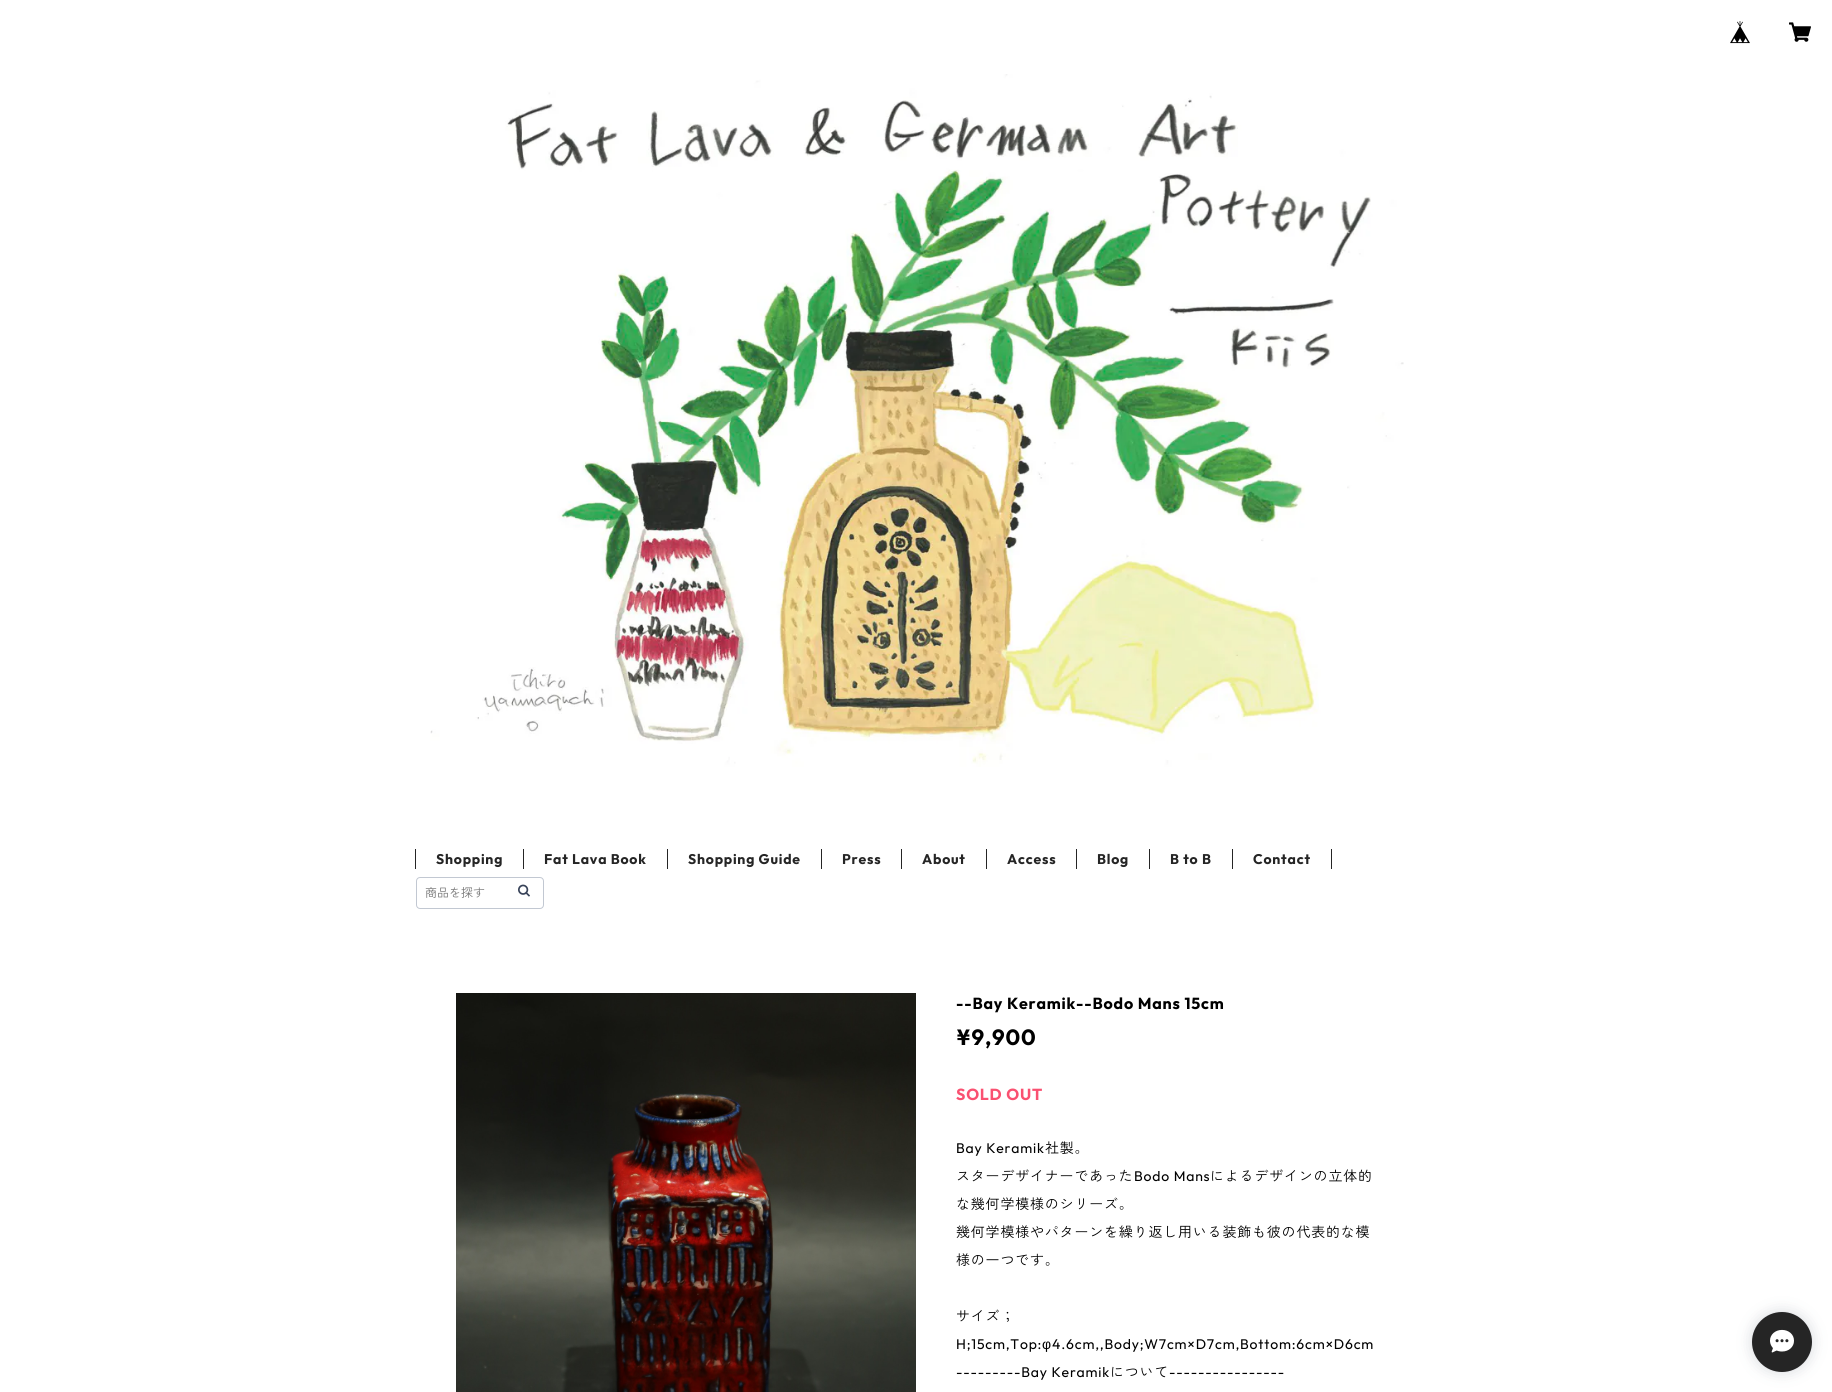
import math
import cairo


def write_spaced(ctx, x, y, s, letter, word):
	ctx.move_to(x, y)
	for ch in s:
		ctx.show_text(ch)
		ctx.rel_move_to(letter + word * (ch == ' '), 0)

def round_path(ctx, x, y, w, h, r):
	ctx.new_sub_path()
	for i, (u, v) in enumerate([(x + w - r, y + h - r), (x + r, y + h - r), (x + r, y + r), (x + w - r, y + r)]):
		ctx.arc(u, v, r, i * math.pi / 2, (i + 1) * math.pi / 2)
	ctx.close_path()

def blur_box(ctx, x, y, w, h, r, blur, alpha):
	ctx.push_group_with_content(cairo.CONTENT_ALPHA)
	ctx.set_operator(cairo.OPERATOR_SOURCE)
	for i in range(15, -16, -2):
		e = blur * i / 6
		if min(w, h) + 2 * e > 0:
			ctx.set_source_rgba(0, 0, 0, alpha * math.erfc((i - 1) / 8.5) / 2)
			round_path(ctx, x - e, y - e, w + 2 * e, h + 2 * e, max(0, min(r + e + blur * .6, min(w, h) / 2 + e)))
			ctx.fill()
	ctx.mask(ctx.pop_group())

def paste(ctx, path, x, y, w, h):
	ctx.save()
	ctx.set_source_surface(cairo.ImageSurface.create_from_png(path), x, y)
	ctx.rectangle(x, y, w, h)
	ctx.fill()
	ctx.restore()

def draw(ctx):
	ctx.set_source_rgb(1, 1, 1)
	ctx.paint()
	paste(ctx, 'media/1.png', 1730, 21, 20, 23)
	paste(ctx, 'media/2.png', 1789, 22, 22, 20)
	paste(ctx, 'media/3.png', 430, 74, 974, 693)
	ctx.set_source_rgb(0.145, 0.145, 0.145)
	ctx.rectangle(523, 849, 1, 20)
	ctx.fill()
	ctx.rectangle(415, 849, 1, 20)
	ctx.fill()
	ctx.select_font_face('Outfit', cairo.FONT_SLANT_NORMAL, cairo.FONT_WEIGHT_BOLD)
	ctx.set_font_size(14)
	write_spaced(ctx, 436, 864, 'Shopping', 0.8, 0)
	ctx.rectangle(667, 849, 1, 20)
	ctx.fill()
	write_spaced(ctx, 544, 864, 'Fat Lava Book', 0.8, 0)
	ctx.rectangle(821, 849, 1, 20)
	ctx.fill()
	write_spaced(ctx, 688, 864, 'Shopping Guide', 0.8, 0)
	ctx.rectangle(901, 849, 1, 20)
	ctx.fill()
	write_spaced(ctx, 842, 864, 'Press', 0.8, 0)
	ctx.rectangle(986, 849, 1, 20)
	ctx.fill()
	write_spaced(ctx, 922, 864, 'About', 0.8, 0)
	ctx.rectangle(1076, 849, 1, 20)
	ctx.fill()
	write_spaced(ctx, 1007, 864, 'Access', 0.8, 0)
	ctx.rectangle(1149, 849, 1, 20)
	ctx.fill()
	write_spaced(ctx, 1097, 864, 'Blog', 0.8, 0)
	ctx.rectangle(1232, 849, 1, 20)
	ctx.fill()
	write_spaced(ctx, 1170, 864, 'B to B', 0.8, 0)
	ctx.rectangle(1331, 849, 1, 20)
	ctx.fill()
	write_spaced(ctx, 1253, 864, 'Contact', 0.8, 0)
	round_path(ctx, 416.5, 877.5, 127, 31, 3.5)
	ctx.set_source_rgb(0.761, 0.784, 0.824)
	ctx.set_line_width(1)
	ctx.stroke()
	ctx.select_font_face('Zen Kaku Gothic New')
	ctx.set_font_size(12)
	ctx.set_source_rgb(0.459, 0.459, 0.459)
	ctx.move_to(425, 897)
	ctx.show_text('商品を探す')
	paste(ctx, 'media/4.png', 518, 884, 12, 13)
	paste(ctx, 'media/5.png', 456, 993, 460, 399)
	ctx.select_font_face('Outfit', cairo.FONT_SLANT_NORMAL, cairo.FONT_WEIGHT_BOLD)
	ctx.set_font_size(16)
	ctx.set_source_rgb(0, 0, 0)
	write_spaced(ctx, 956, 1009, '--Bay Keramik--Bodo Mans 15cm', 0.8, 0)
	ctx.set_font_size(22)
	write_spaced(ctx, 956, 1045, '¥9,900', 0.8, 0)
	ctx.set_font_size(16)
	ctx.set_source_rgb(0.98, 0.318, 0.443)
	write_spaced(ctx, 956, 1100, 'SOLD OUT', 0.8, 0)
	ctx.select_font_face('Outfit')
	ctx.set_font_size(14)
	ctx.set_source_rgb(0, 0, 0)
	write_spaced(ctx, 956, 1153, 'Bay Keramik', 0.8, 0)
	ctx.select_font_face('Zen Kaku Gothic New')
	write_spaced(ctx, 1045, 1153, '社製。', 0.8, 0)
	write_spaced(ctx, 956, 1181, 'スターデザイナーであった', 0.8, 0)
	ctx.select_font_face('Outfit')
	write_spaced(ctx, 1134, 1181, 'Bodo Mans', 0.8, 0)
	ctx.select_font_face('Zen Kaku Gothic New')
	for x, y, s in [
		(1210, 1181, 'によるデザインの立体的'),
		(956, 1209, 'な幾何学模様のシリーズ。'),
		(956, 1237, '幾何学模様やパターンを繰り返し用いる装飾も彼の代表的な模'),
		(956, 1265, '様の一つです。'),
		(956, 1321, 'サイズ；'),
	]:
		write_spaced(ctx, x, y, s, 0.8, 0)
	ctx.select_font_face('Outfit')
	write_spaced(ctx, 956, 1349, 'H;15cm,Top:', 0.8, 0)
	ctx.select_font_face('Liberation Sans')
	write_spaced(ctx, 1042, 1349, 'φ', 0.8, 0)
	ctx.select_font_face('Outfit')
	write_spaced(ctx, 1052, 1349, '4.6cm,,Body;W7cm×D7cm,Bottom:6cm×D6cm', 0.8, 0)
	write_spaced(ctx, 956, 1377, '---------Bay Keramik', 0.8, 0)
	ctx.select_font_face('Zen Kaku Gothic New')
	write_spaced(ctx, 1110, 1377, 'について', 0.8, 0)
	ctx.select_font_face('Outfit')
	write_spaced(ctx, 1169, 1377, '----------------', 0.8, 0)
	ctx.set_source_rgb(0.2, 0.259, 0.345)
	blur_box(ctx, 1752, 1312, 60, 60, 30, 7.5, 0.2)
	ctx.set_source_rgb(0.145, 0.145, 0.145)
	ctx.arc(1782, 1342, 30, 0, 2 * math.pi)
	ctx.fill()
	paste(ctx, 'media/6.png', 1770, 1329, 24, 24)


surface = cairo.ImageSurface(cairo.FORMAT_RGB24, 1832, 1392)
ctx = cairo.Context(surface)
options = cairo.FontOptions()
options.set_hint_metrics(cairo.HINT_METRICS_OFF)
options.set_hint_style(cairo.HINT_STYLE_NONE)
ctx.set_font_options(options)
ctx.set_miter_limit(4)
draw(ctx)
surface.write_to_png('image.png')
